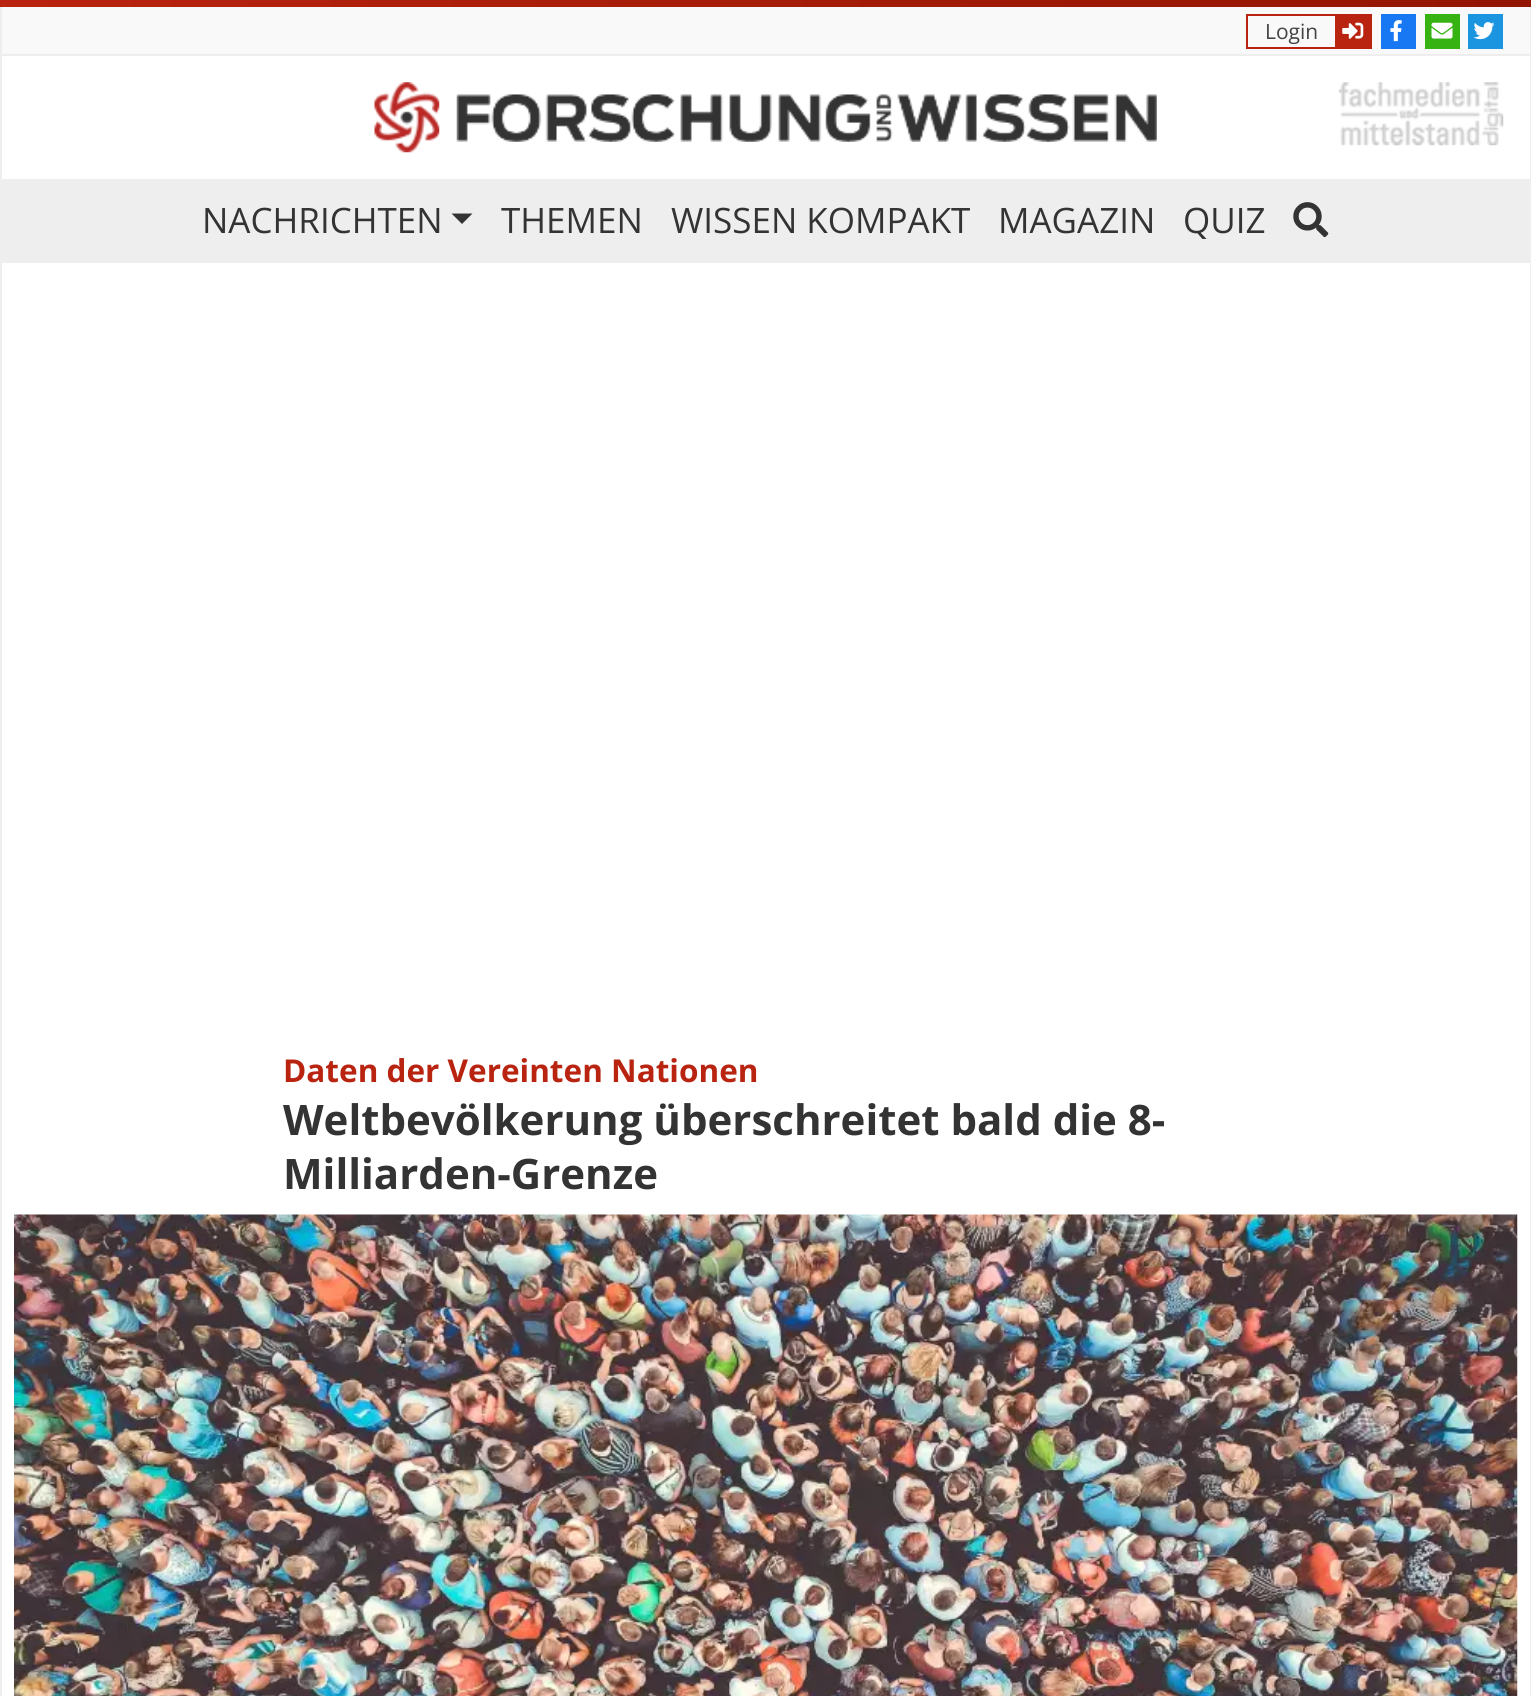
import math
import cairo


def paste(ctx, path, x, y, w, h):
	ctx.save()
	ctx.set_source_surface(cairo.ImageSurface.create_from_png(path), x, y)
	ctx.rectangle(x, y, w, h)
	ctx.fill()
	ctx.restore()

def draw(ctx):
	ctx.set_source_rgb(1, 1, 1)
	ctx.paint()
	ctx.set_source_rgb(0.933, 0.933, 0.933)
	ctx.rectangle(1530, 0, 1, 1696)
	ctx.fill()
	ctx.rectangle(0, 0, 2, 1696)
	ctx.fill()
	gradient = cairo.LinearGradient(0, 3.5, 1531, 3.5)
	gradient.add_color_stop_rgba(0, 0.725, 0.141, 0.063, 1)
	gradient.add_color_stop_rgba(1, 0.573, 0.082, 0, 1)
	ctx.set_source(gradient)
	ctx.rectangle(0, 0, 1531, 7)
	ctx.fill()
	ctx.set_source_rgb(0.976, 0.976, 0.976)
	ctx.rectangle(2, 7, 1528, 47)
	ctx.fill()
	ctx.set_source_rgb(0.933, 0.933, 0.933)
	ctx.rectangle(2, 54, 1528, 2)
	ctx.fill()
	ctx.set_source_rgb(0.725, 0.141, 0.063)
	ctx.rectangle(1246, 14, 126, 35)
	ctx.fill()
	ctx.set_source_rgb(0.976, 0.976, 0.976)
	ctx.rectangle(1248, 16, 87, 31)
	ctx.fill()
	ctx.select_font_face('Open Sans')
	ctx.set_font_size(21)
	ctx.set_source_rgb(0.267, 0.267, 0.267)
	ctx.move_to(1265, 39)
	ctx.show_text('Login')
	paste(ctx, 'media/1.png', 1342, 22, 22, 17)
	ctx.set_source_rgb(0.094, 0.467, 0.949)
	ctx.rectangle(1381, 14, 35, 35)
	ctx.fill()
	paste(ctx, 'media/2.png', 1390, 20, 12, 22)
	ctx.set_source_rgb(0.212, 0.702, 0.075)
	ctx.rectangle(1425, 14, 35, 35)
	ctx.fill()
	paste(ctx, 'media/3.png', 1431, 22, 22, 17)
	ctx.set_source_rgb(0.106, 0.584, 0.878)
	ctx.rectangle(1468, 14, 35, 35)
	ctx.fill()
	paste(ctx, 'media/4.png', 1473, 22, 22, 18)
	paste(ctx, 'media/5.png', 374, 82, 66, 71)
	paste(ctx, 'media/6.png', 456, 94, 701, 48)
	paste(ctx, 'media/7.png', 1338, 82, 166, 64)
	ctx.set_source_rgb(0.933, 0.933, 0.933)
	ctx.rectangle(2, 179, 1528, 84)
	ctx.fill()
	ctx.set_font_size(35)
	ctx.set_source_rgb(0.2, 0.2, 0.2)
	ctx.move_to(202, 233)
	ctx.show_text('NACHRICHTEN')
	ctx.new_path()
	ctx.move_to(451.5, 213.5)
	ctx.line_to(472.5, 213.5)
	ctx.line_to(462, 224)
	ctx.close_path()
	ctx.fill()
	for x, y, s in [
		(501, 233, 'THEMEN'),
		(671, 233, 'WISSEN KOMPAKT'),
		(998, 233, 'MAGAZIN'),
		(1183, 233, 'QUIZ'),
	]:
		ctx.move_to(x, y)
		ctx.show_text(s)
	paste(ctx, 'media/8.png', 1293, 202, 36, 36)
	ctx.select_font_face('Open Sans', cairo.FONT_SLANT_NORMAL, cairo.FONT_WEIGHT_BOLD)
	ctx.set_font_size(31.5)
	ctx.set_source_rgb(0.725, 0.141, 0.063)
	ctx.move_to(283, 1082)
	ctx.show_text('Daten der Vereinten Nationen')
	ctx.set_font_size(42)
	ctx.set_source_rgb(0.2, 0.2, 0.2)
	ctx.move_to(283, 1135)
	ctx.show_text('Weltbevölkerung überschreitet bald die 8-')
	ctx.move_to(283, 1189)
	ctx.show_text('Milliarden-Grenze')
	paste(ctx, 'media/9.png', 14, 1214, 1504, 482)


surface = cairo.ImageSurface(cairo.FORMAT_RGB24, 1531, 1696)
ctx = cairo.Context(surface)
options = cairo.FontOptions()
options.set_hint_metrics(cairo.HINT_METRICS_OFF)
options.set_hint_style(cairo.HINT_STYLE_NONE)
ctx.set_font_options(options)
ctx.set_miter_limit(4)
draw(ctx)
surface.write_to_png('image.png')
